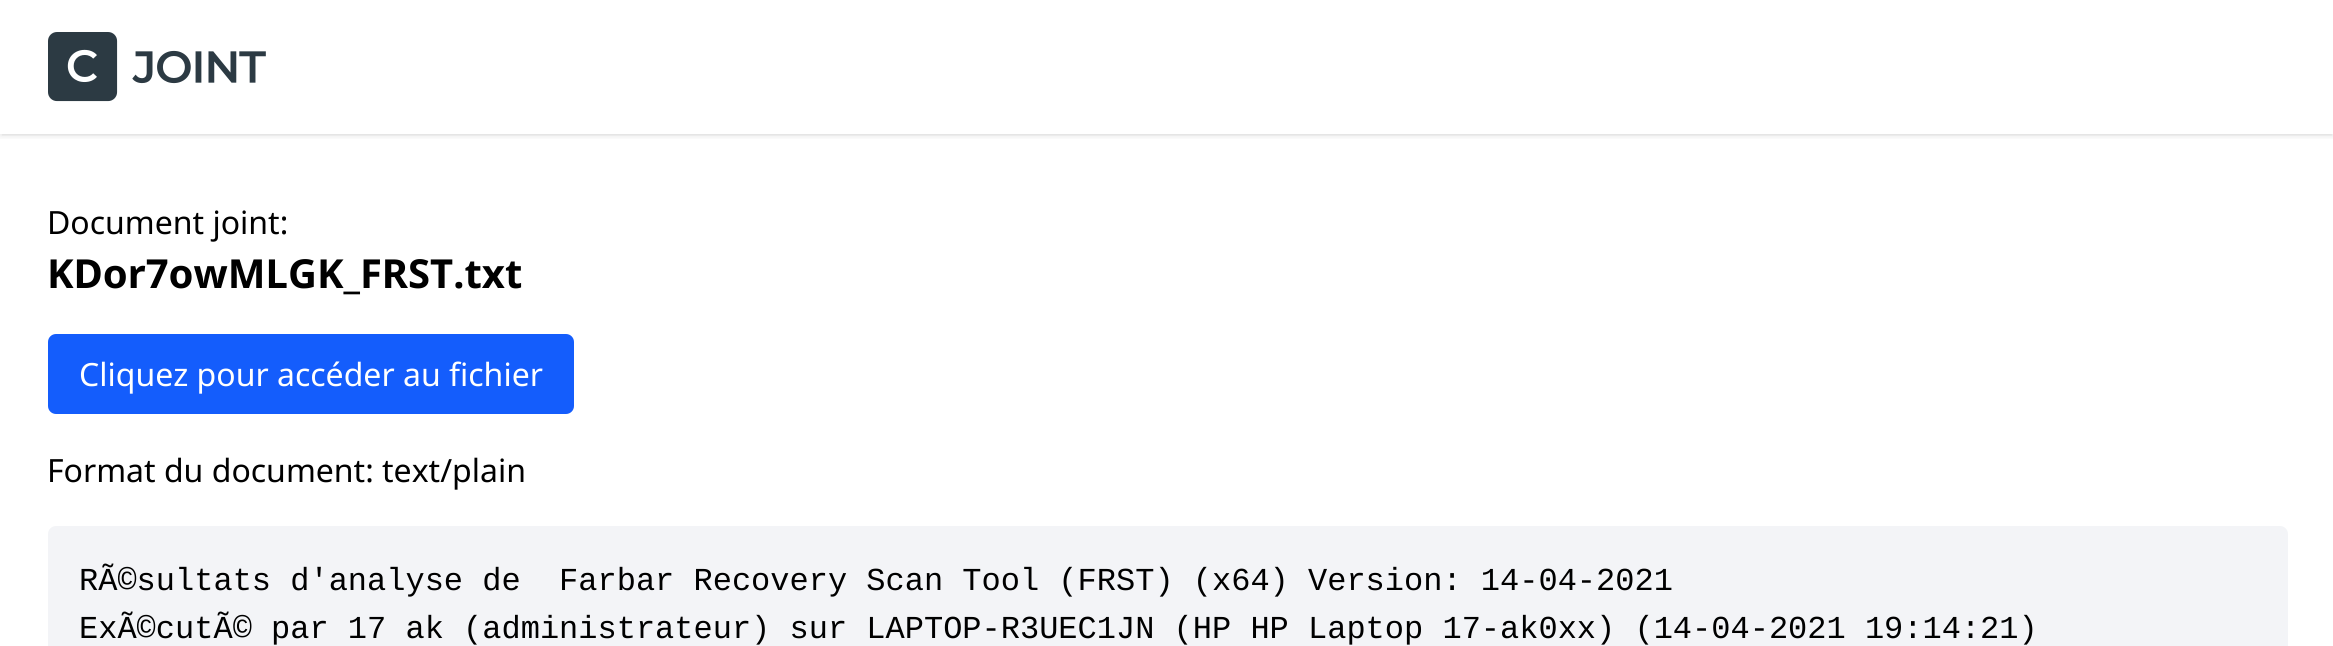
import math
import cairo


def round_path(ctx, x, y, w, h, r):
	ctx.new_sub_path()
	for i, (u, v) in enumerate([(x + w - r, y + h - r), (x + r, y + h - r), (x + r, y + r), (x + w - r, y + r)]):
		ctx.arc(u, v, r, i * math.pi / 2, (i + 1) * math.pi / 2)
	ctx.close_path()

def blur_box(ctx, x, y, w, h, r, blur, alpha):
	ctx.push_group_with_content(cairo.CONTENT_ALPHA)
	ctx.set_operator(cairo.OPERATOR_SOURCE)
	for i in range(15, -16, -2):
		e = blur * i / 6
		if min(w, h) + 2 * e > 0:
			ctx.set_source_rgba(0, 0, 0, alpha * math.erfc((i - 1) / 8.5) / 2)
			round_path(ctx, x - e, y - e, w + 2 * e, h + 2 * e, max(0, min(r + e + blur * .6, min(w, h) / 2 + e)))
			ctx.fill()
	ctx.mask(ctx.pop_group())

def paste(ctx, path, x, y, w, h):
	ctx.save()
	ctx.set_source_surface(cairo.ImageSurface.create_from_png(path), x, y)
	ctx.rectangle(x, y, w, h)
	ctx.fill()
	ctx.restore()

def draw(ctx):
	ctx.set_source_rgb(1, 1, 1)
	ctx.paint()
	ctx.save()
	ctx.rectangle(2, 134, 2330, 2)
	ctx.clip()
	ctx.set_source_rgb(0, 0, 0)
	blur_box(ctx, 2, 4, 2330, 130, 0, 2, 0.1)
	ctx.restore()
	ctx.save()
	ctx.rectangle(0, 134, 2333, 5)
	ctx.clip()
	ctx.set_source_rgb(0, 0, 0)
	blur_box(ctx, 0, 2, 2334, 134, 0, 3, 0.1)
	ctx.restore()
	paste(ctx, 'media/1.png', 48, 32, 218, 70)
	ctx.select_font_face('Noto Sans')
	ctx.set_font_size(32)
	ctx.set_source_rgb(0, 0, 0)
	ctx.move_to(47, 234)
	ctx.show_text('Document joint:')
	ctx.select_font_face('Noto Sans', cairo.FONT_SLANT_NORMAL, cairo.FONT_WEIGHT_BOLD)
	ctx.set_font_size(40)
	ctx.move_to(47, 288)
	ctx.show_text('KDor7owMLGK_FRST.txt')
	ctx.set_source_rgb(0.082, 0.365, 0.988)
	round_path(ctx, 48, 334, 526, 80, 8)
	ctx.fill()
	ctx.select_font_face('Noto Sans')
	ctx.set_font_size(32)
	ctx.set_source_rgb(1, 1, 1)
	ctx.move_to(79, 386)
	ctx.show_text('Cliquez pour accéder au fichier')
	ctx.set_source_rgb(0, 0, 0)
	ctx.move_to(47, 482)
	ctx.show_text('Format du document: text/plain')
	ctx.set_source_rgb(0.953, 0.957, 0.965)
	round_path(ctx, 48, 526, 2240, 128, 8)
	ctx.fill()
	ctx.select_font_face('Liberation Mono')
	ctx.set_source_rgb(0, 0, 0)
	ctx.move_to(79, 590)
	ctx.show_text('RÃ©sultats d\'analyse de  Farbar Recovery Scan Tool (FRST) (x64) Version: 14-04-2021')
	ctx.move_to(79, 638)
	ctx.show_text('ExÃ©cutÃ© par 17 ak (administrateur) sur LAPTOP-R3UEC1JN (HP HP Laptop 17-ak0xx) (14-04-2021 19:14:21)')


surface = cairo.ImageSurface(cairo.FORMAT_RGB24, 2333, 646)
ctx = cairo.Context(surface)
options = cairo.FontOptions()
options.set_hint_metrics(cairo.HINT_METRICS_OFF)
options.set_hint_style(cairo.HINT_STYLE_NONE)
ctx.set_font_options(options)
ctx.set_miter_limit(4)
draw(ctx)
surface.write_to_png('image.png')
